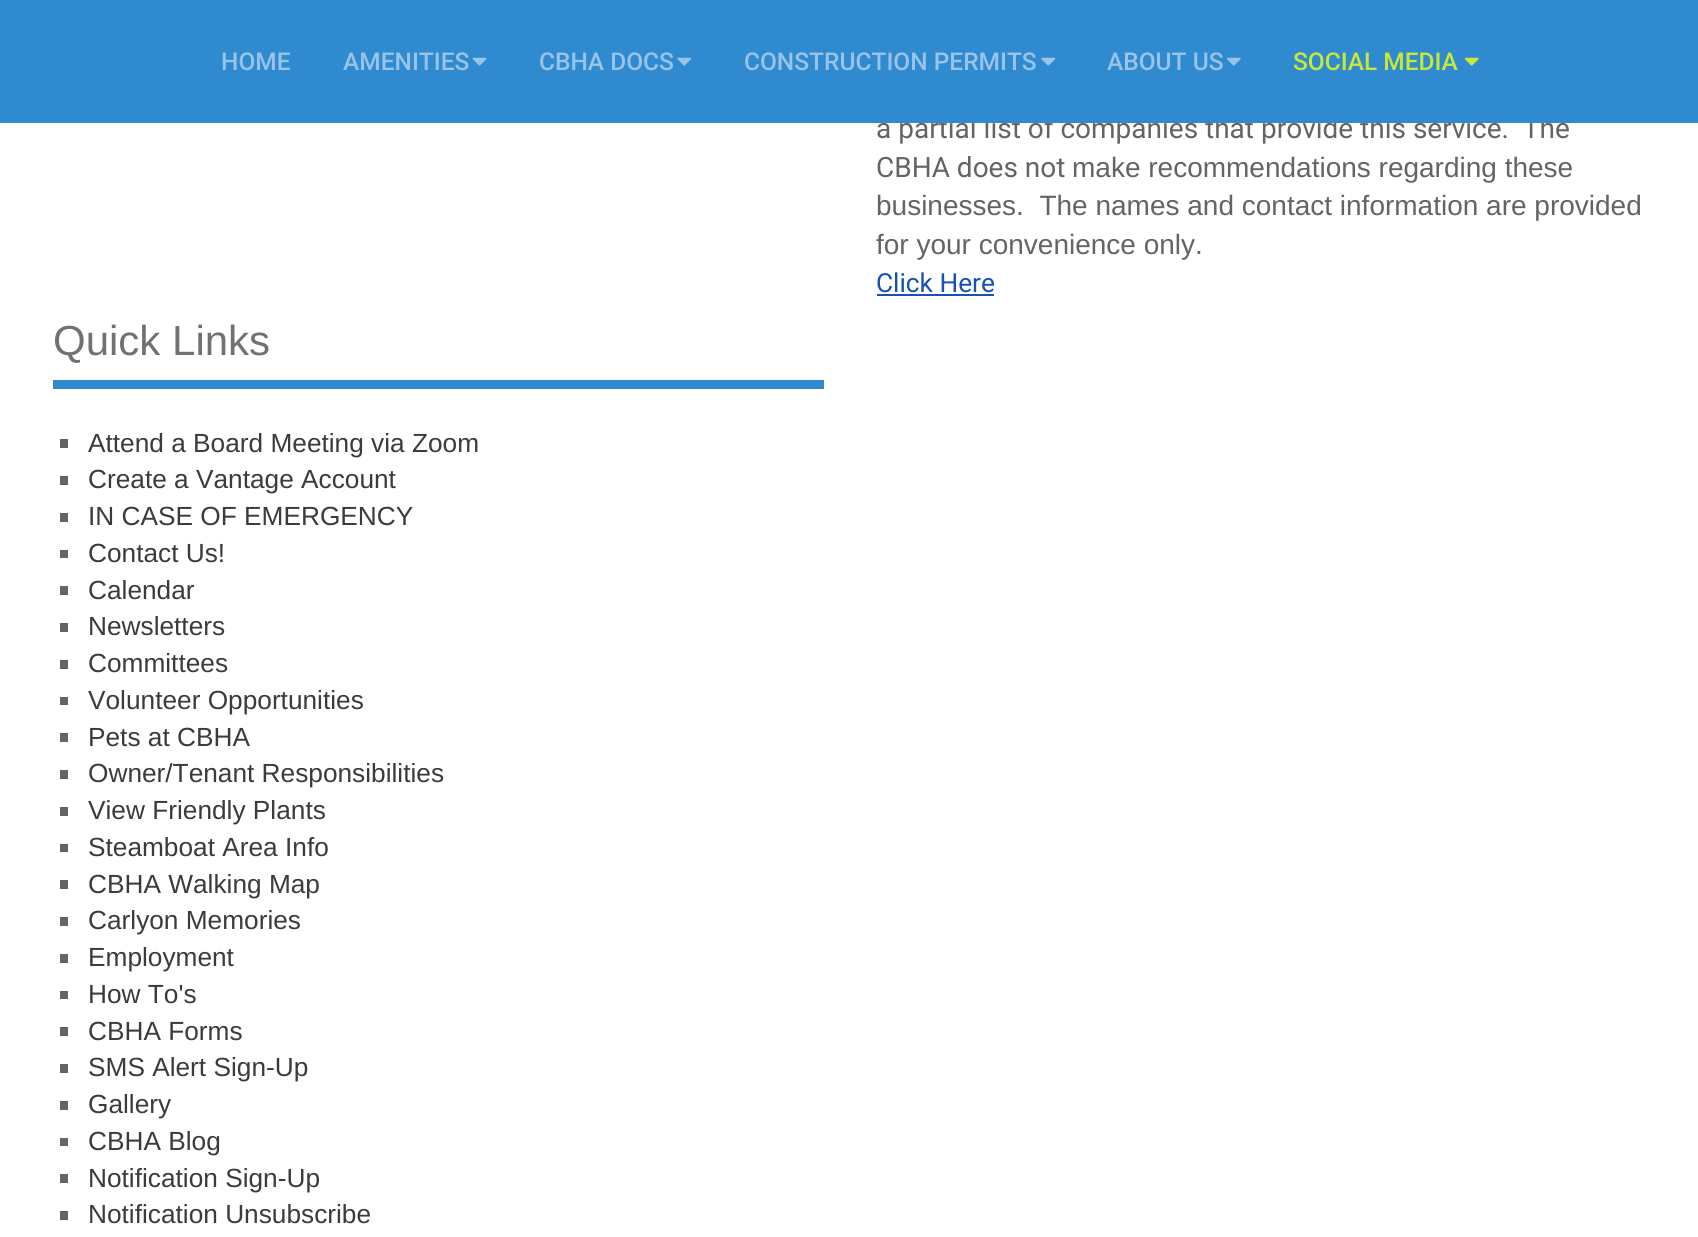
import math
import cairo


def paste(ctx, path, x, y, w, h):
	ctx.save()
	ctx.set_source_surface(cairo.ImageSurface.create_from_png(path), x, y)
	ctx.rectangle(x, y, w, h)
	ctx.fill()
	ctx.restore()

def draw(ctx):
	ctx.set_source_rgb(1, 1, 1)
	ctx.paint()
	ctx.select_font_face('Roboto')
	ctx.set_font_size(28)
	ctx.set_source_rgb(0.396, 0.388, 0.388)
	ctx.move_to(876, 138)
	ctx.show_text('a partial list of companies that provide this service.  The')
	ctx.set_source_rgb(0.184, 0.541, 0.816)
	ctx.rectangle(0, 0, 1698, 123)
	ctx.fill()
	ctx.select_font_face('Roboto Medium')
	ctx.set_font_size(24.5)
	ctx.set_source_rgb(0.592, 0.769, 0.91)
	ctx.move_to(221, 70)
	ctx.show_text('HOME')
	ctx.move_to(343, 70)
	ctx.show_text('AMENITIES')
	paste(ctx, 'media/1.png', 472, 57, 15, 9)
	ctx.move_to(539, 70)
	ctx.show_text('CBHA DOCS')
	paste(ctx, 'media/2.png', 677, 57, 15, 9)
	ctx.move_to(744, 70)
	ctx.show_text('CONSTRUCTION PERMITS')
	paste(ctx, 'media/2.png', 1041, 57, 15, 9)
	ctx.move_to(1107, 70)
	ctx.show_text('ABOUT US')
	paste(ctx, 'media/3.png', 1226, 57, 15, 9)
	ctx.set_source_rgb(0.784, 0.91, 0.22)
	ctx.move_to(1293, 70)
	ctx.show_text('SOCIAL MEDIA')
	paste(ctx, 'media/4.png', 1464, 57, 15, 9)
	ctx.select_font_face('Roboto')
	ctx.set_font_size(28)
	ctx.set_source_rgb(0.396, 0.388, 0.388)
	ctx.move_to(876, 177)
	ctx.show_text('CBHA does not')
	ctx.select_font_face('Liberation Sans')
	for x, y, s in [
		(1072, 177, 'make recommendations regarding these'),
		(876, 215, 'businesses.  The names and contact information are provided'),
		(876, 254, 'for your convenience only.'),
	]:
		ctx.move_to(x, y)
		ctx.show_text(s)
	ctx.select_font_face('Roboto')
	ctx.set_font_size(26.25)
	ctx.set_source_rgb(0.09, 0.322, 0.702)
	ctx.move_to(876, 292)
	ctx.show_text('Click Here')
	ctx.rectangle(877, 294, 117, 2)
	ctx.fill()
	ctx.select_font_face('Liberation Sans')
	ctx.set_font_size(42)
	ctx.set_source_rgb(0.443, 0.443, 0.443)
	ctx.move_to(53, 355)
	ctx.show_text('Quick Links')
	ctx.set_source_rgb(0.184, 0.541, 0.816)
	ctx.rectangle(53, 380, 771, 9)
	ctx.fill()
	ctx.set_source_rgb(0.396, 0.388, 0.388)
	ctx.rectangle(60, 439, 8, 9)
	ctx.fill()
	ctx.set_font_size(26.25)
	ctx.set_source_rgb(0.239, 0.227, 0.227)
	ctx.move_to(88, 452)
	ctx.show_text('Attend a Board Meeting via Zoom')
	ctx.set_source_rgb(0.396, 0.388, 0.388)
	ctx.rectangle(60, 476, 8, 9)
	ctx.fill()
	ctx.set_source_rgb(0.239, 0.227, 0.227)
	ctx.move_to(88, 488)
	ctx.show_text('Create a Vantage Account')
	ctx.set_source_rgb(0.396, 0.388, 0.388)
	ctx.rectangle(60, 513, 8, 9)
	ctx.fill()
	ctx.set_source_rgb(0.239, 0.227, 0.227)
	ctx.move_to(88, 525)
	ctx.show_text('IN CASE OF EMERGENCY')
	ctx.set_source_rgb(0.396, 0.388, 0.388)
	ctx.rectangle(60, 550, 8, 8)
	ctx.fill()
	ctx.set_source_rgb(0.239, 0.227, 0.227)
	ctx.move_to(88, 562)
	ctx.show_text('Contact Us!')
	ctx.set_source_rgb(0.396, 0.388, 0.388)
	ctx.rectangle(60, 586, 8, 9)
	ctx.fill()
	ctx.set_source_rgb(0.239, 0.227, 0.227)
	ctx.move_to(88, 599)
	ctx.show_text('Calendar')
	ctx.set_source_rgb(0.396, 0.388, 0.388)
	ctx.rectangle(60, 623, 8, 9)
	ctx.fill()
	ctx.set_source_rgb(0.239, 0.227, 0.227)
	ctx.move_to(88, 635)
	ctx.show_text('Newsletters')
	ctx.set_source_rgb(0.396, 0.388, 0.388)
	ctx.rectangle(60, 660, 8, 9)
	ctx.fill()
	ctx.set_source_rgb(0.239, 0.227, 0.227)
	ctx.move_to(88, 672)
	ctx.show_text('Committees')
	ctx.set_source_rgb(0.396, 0.388, 0.388)
	ctx.rectangle(60, 697, 8, 8)
	ctx.fill()
	ctx.set_source_rgb(0.239, 0.227, 0.227)
	ctx.move_to(88, 709)
	ctx.show_text('Volunteer Opportunities')
	ctx.set_source_rgb(0.396, 0.388, 0.388)
	ctx.rectangle(60, 733, 8, 9)
	ctx.fill()
	ctx.set_source_rgb(0.239, 0.227, 0.227)
	ctx.move_to(88, 746)
	ctx.show_text('Pets at CBHA')
	ctx.set_source_rgb(0.396, 0.388, 0.388)
	ctx.rectangle(60, 770, 8, 9)
	ctx.fill()
	ctx.set_source_rgb(0.239, 0.227, 0.227)
	ctx.move_to(88, 782)
	ctx.show_text('Owner/Tenant Responsibilities')
	ctx.set_source_rgb(0.396, 0.388, 0.388)
	ctx.rectangle(60, 807, 8, 9)
	ctx.fill()
	ctx.set_source_rgb(0.239, 0.227, 0.227)
	ctx.move_to(88, 819)
	ctx.show_text('View Friendly Plants')
	ctx.set_source_rgb(0.396, 0.388, 0.388)
	ctx.rectangle(60, 844, 8, 8)
	ctx.fill()
	ctx.set_source_rgb(0.239, 0.227, 0.227)
	ctx.move_to(88, 856)
	ctx.show_text('Steamboat Area Info')
	ctx.set_source_rgb(0.396, 0.388, 0.388)
	ctx.rectangle(60, 880, 8, 9)
	ctx.fill()
	ctx.set_source_rgb(0.239, 0.227, 0.227)
	ctx.move_to(88, 893)
	ctx.show_text('CBHA Walking Map')
	ctx.set_source_rgb(0.396, 0.388, 0.388)
	ctx.rectangle(60, 917, 8, 9)
	ctx.fill()
	ctx.set_source_rgb(0.239, 0.227, 0.227)
	ctx.move_to(88, 929)
	ctx.show_text('Carlyon Memories')
	ctx.set_source_rgb(0.396, 0.388, 0.388)
	ctx.rectangle(60, 954, 8, 9)
	ctx.fill()
	ctx.set_source_rgb(0.239, 0.227, 0.227)
	ctx.move_to(88, 966)
	ctx.show_text('Employment')
	ctx.set_source_rgb(0.396, 0.388, 0.388)
	ctx.rectangle(60, 991, 8, 8)
	ctx.fill()
	ctx.set_source_rgb(0.239, 0.227, 0.227)
	ctx.move_to(88, 1003)
	ctx.show_text('How To\'s')
	ctx.set_source_rgb(0.396, 0.388, 0.388)
	ctx.rectangle(60, 1027, 8, 9)
	ctx.fill()
	ctx.set_source_rgb(0.239, 0.227, 0.227)
	ctx.move_to(88, 1040)
	ctx.show_text('CBHA Forms')
	ctx.set_source_rgb(0.396, 0.388, 0.388)
	ctx.rectangle(60, 1064, 8, 9)
	ctx.fill()
	ctx.set_source_rgb(0.239, 0.227, 0.227)
	ctx.move_to(88, 1076)
	ctx.show_text('SMS Alert Sign-Up')
	ctx.set_source_rgb(0.396, 0.388, 0.388)
	ctx.rectangle(60, 1101, 8, 9)
	ctx.fill()
	ctx.set_source_rgb(0.239, 0.227, 0.227)
	ctx.move_to(88, 1113)
	ctx.show_text('Gallery')
	ctx.set_source_rgb(0.396, 0.388, 0.388)
	ctx.rectangle(60, 1138, 8, 8)
	ctx.fill()
	ctx.set_source_rgb(0.239, 0.227, 0.227)
	ctx.move_to(88, 1150)
	ctx.show_text('CBHA Blog')
	ctx.set_source_rgb(0.396, 0.388, 0.388)
	ctx.rectangle(60, 1174, 8, 9)
	ctx.fill()
	ctx.set_source_rgb(0.239, 0.227, 0.227)
	ctx.move_to(88, 1187)
	ctx.show_text('Notification Sign-Up')
	ctx.set_source_rgb(0.396, 0.388, 0.388)
	ctx.rectangle(60, 1211, 8, 9)
	ctx.fill()
	ctx.set_source_rgb(0.239, 0.227, 0.227)
	ctx.move_to(88, 1223)
	ctx.show_text('Notification Unsubscribe')


surface = cairo.ImageSurface(cairo.FORMAT_RGB24, 1698, 1237)
ctx = cairo.Context(surface)
options = cairo.FontOptions()
options.set_hint_metrics(cairo.HINT_METRICS_OFF)
options.set_hint_style(cairo.HINT_STYLE_NONE)
ctx.set_font_options(options)
ctx.set_miter_limit(4)
draw(ctx)
surface.write_to_png('image.png')
